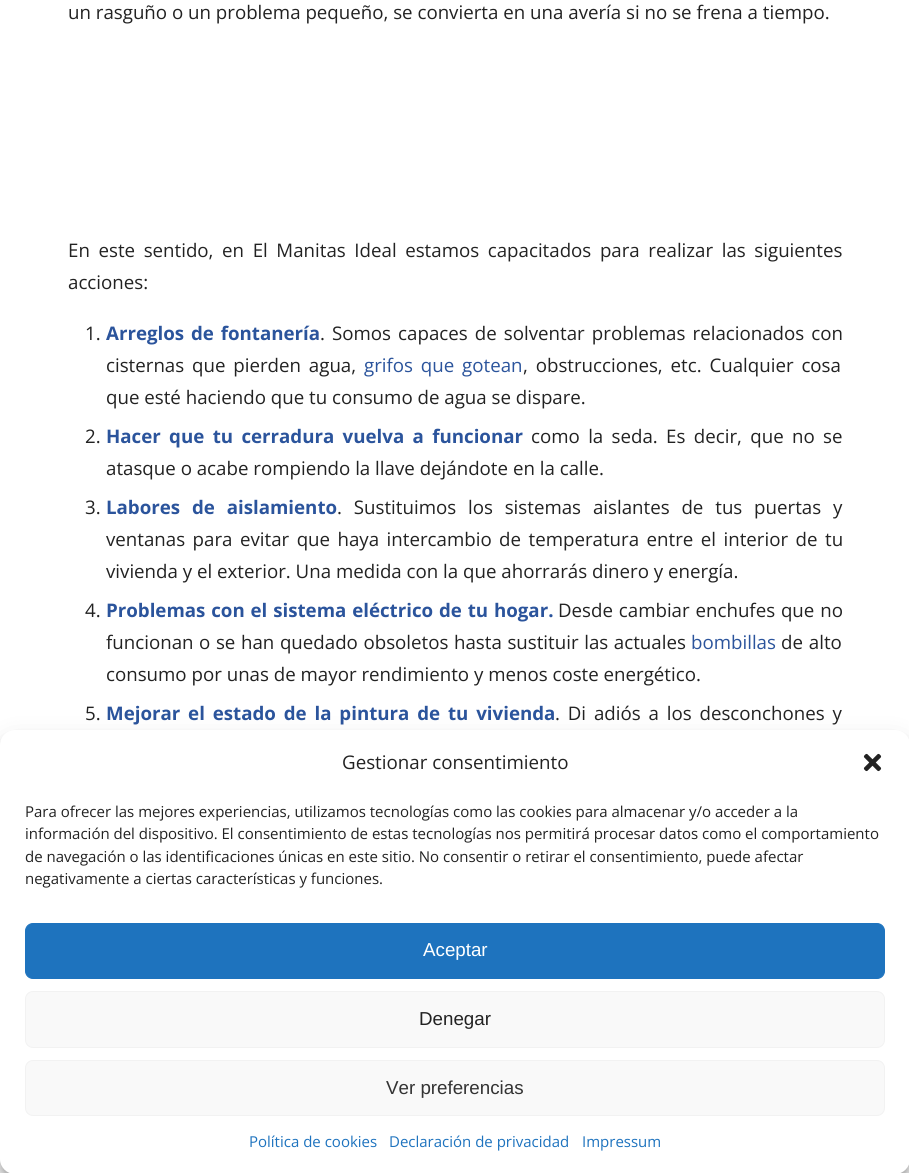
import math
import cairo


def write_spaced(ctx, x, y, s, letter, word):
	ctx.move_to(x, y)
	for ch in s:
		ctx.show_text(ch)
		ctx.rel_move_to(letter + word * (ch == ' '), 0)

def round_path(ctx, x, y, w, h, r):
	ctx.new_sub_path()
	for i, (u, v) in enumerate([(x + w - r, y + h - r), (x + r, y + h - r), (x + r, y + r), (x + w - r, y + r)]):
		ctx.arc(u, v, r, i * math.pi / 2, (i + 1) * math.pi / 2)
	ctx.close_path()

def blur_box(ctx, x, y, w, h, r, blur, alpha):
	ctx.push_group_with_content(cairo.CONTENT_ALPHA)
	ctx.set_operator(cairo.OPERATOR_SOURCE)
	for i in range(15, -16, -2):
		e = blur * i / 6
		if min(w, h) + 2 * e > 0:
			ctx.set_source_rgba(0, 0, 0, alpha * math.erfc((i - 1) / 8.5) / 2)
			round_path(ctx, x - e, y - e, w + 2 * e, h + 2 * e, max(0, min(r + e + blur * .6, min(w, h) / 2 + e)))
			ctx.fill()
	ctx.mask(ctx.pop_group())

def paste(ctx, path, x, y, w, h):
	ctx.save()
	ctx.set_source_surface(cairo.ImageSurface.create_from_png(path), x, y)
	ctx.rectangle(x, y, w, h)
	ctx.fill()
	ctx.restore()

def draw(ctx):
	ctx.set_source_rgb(1, 1, 1)
	ctx.paint()
	ctx.select_font_face('Open Sans')
	ctx.set_font_size(18.7)
	ctx.set_source_rgb(0.133, 0.133, 0.133)
	ctx.move_to(68, 19)
	ctx.show_text('un rasguño o un problema pequeño, se convierta en una avería si no se frena a tiempo.')
	write_spaced(ctx, 68, 257, 'En este sentido, en El Manitas Ideal estamos capacitados para realizar las siguientes', 0, 3.75)
	ctx.move_to(68, 289)
	ctx.show_text('acciones:')
	ctx.move_to(85, 340)
	ctx.show_text('1.')
	ctx.select_font_face('Open Sans', cairo.FONT_SLANT_NORMAL, cairo.FONT_WEIGHT_BOLD)
	ctx.set_source_rgb(0.169, 0.329, 0.612)
	write_spaced(ctx, 106, 340, 'Arreglos de fontanería', 0, 2)
	ctx.select_font_face('Open Sans')
	ctx.set_source_rgb(0.133, 0.133, 0.133)
	write_spaced(ctx, 320, 340, '. Somos capaces de solventar problemas relacionados con', 0, 2.25)
	write_spaced(ctx, 106, 372, 'cisternas que pierden agua,', 0, 3)
	ctx.set_source_rgb(0.169, 0.329, 0.612)
	write_spaced(ctx, 364, 372, 'grifos que gotean', 0, 3)
	ctx.set_source_rgb(0.133, 0.133, 0.133)
	write_spaced(ctx, 523, 372, ', obstrucciones, etc. Cualquier cosa', 0, 3)
	ctx.move_to(106, 404)
	ctx.show_text('que esté haciendo que tu consumo de agua se dispare.')
	ctx.move_to(85, 443)
	ctx.show_text('2.')
	ctx.select_font_face('Open Sans', cairo.FONT_SLANT_NORMAL, cairo.FONT_WEIGHT_BOLD)
	ctx.set_source_rgb(0.169, 0.329, 0.612)
	write_spaced(ctx, 106, 443, 'Hacer que tu cerradura vuelva a funcionar', 0, 3.5)
	ctx.select_font_face('Open Sans')
	ctx.set_source_rgb(0.133, 0.133, 0.133)
	write_spaced(ctx, 531, 443, 'como la seda. Es decir, que no se', 0, 3.5)
	ctx.move_to(106, 475)
	ctx.show_text('atasque o acabe rompiendo la llave dejándote en la calle.')
	ctx.move_to(85, 514)
	ctx.show_text('3.')
	ctx.select_font_face('Open Sans', cairo.FONT_SLANT_NORMAL, cairo.FONT_WEIGHT_BOLD)
	ctx.set_source_rgb(0.169, 0.329, 0.612)
	write_spaced(ctx, 106, 514, 'Labores de aislamiento', 0, 7)
	ctx.select_font_face('Open Sans')
	ctx.set_source_rgb(0.133, 0.133, 0.133)
	write_spaced(ctx, 337, 514, '. Sustituimos los sistemas aislantes de tus puertas y', 0, 7)
	write_spaced(ctx, 106, 546, 'ventanas para evitar que haya intercambio de temperatura entre el interior de tu', 0, 2.6)
	ctx.move_to(106, 578)
	ctx.show_text('vivienda y el exterior. Una medida con la que ahorrarás dinero y energía.')
	ctx.move_to(85, 617)
	ctx.show_text('4.')
	ctx.select_font_face('Open Sans', cairo.FONT_SLANT_NORMAL, cairo.FONT_WEIGHT_BOLD)
	ctx.set_source_rgb(0.169, 0.329, 0.612)
	write_spaced(ctx, 106, 617, 'Problemas con el sistema eléctrico de tu hogar.', 0, 1)
	ctx.select_font_face('Open Sans')
	ctx.set_source_rgb(0.133, 0.133, 0.133)
	write_spaced(ctx, 558, 617, 'Desde cambiar enchufes que no', 0, 1)
	write_spaced(ctx, 106, 649, 'funcionan o se han quedado obsoletos hasta sustituir las actuales', 0, 0.75)
	ctx.set_source_rgb(0.169, 0.329, 0.612)
	ctx.move_to(691, 649)
	ctx.show_text('bombillas')
	ctx.set_source_rgb(0.133, 0.133, 0.133)
	write_spaced(ctx, 781, 649, 'de alto', 0, 1)
	ctx.move_to(106, 681)
	ctx.show_text('consumo por unas de mayor rendimiento y menos coste energético.')
	ctx.move_to(85, 720)
	ctx.show_text('5.')
	ctx.select_font_face('Open Sans', cairo.FONT_SLANT_NORMAL, cairo.FONT_WEIGHT_BOLD)
	ctx.set_source_rgb(0.169, 0.329, 0.612)
	write_spaced(ctx, 106, 720, 'Mejorar el estado de la pintura de tu vivienda', 0, 3)
	ctx.select_font_face('Open Sans')
	ctx.set_source_rgb(0.133, 0.133, 0.133)
	write_spaced(ctx, 555, 720, '. Di adiós a los desconchones y', 0, 3)
	ctx.set_source_rgb(0, 0, 0)
	blur_box(ctx, 0, 738, 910, 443, 15, 4, 0.23)
	blur_box(ctx, 0, 743, 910, 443, 15, 12.5, 0.19)
	ctx.set_source_rgb(1, 1, 1)
	round_path(ctx, 0, 730, 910, 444, 15)
	ctx.fill()
	ctx.set_font_size(18.75)
	ctx.set_source_rgb(0.133, 0.133, 0.133)
	ctx.move_to(342, 769)
	ctx.show_text('Gestionar consentimiento')
	paste(ctx, 'media/1.png', 863, 753, 19, 19)
	ctx.set_font_size(15)
	for x, y, s in [
		(25, 817, 'Para ofrecer las mejores experiencias, utilizamos tecnologías como las cookies para almacenar y/o acceder a la'),
		(25, 839, 'información del dispositivo. El consentimiento de estas tecnologías nos permitirá procesar datos como el comportamiento'),
		(25, 862, 'de navegación o las identificaciones únicas en este sitio. No consentir o retirar el consentimiento, puede afectar'),
		(25, 884, 'negativamente a ciertas características y funciones.'),
	]:
		ctx.move_to(x, y)
		ctx.show_text(s)
	ctx.set_source_rgb(0.118, 0.451, 0.745)
	round_path(ctx, 25.5, 923.5, 859, 55, 7.5)
	ctx.fill_preserve()
	ctx.set_line_width(1)
	ctx.stroke()
	ctx.select_font_face('Liberation Sans')
	ctx.set_font_size(18.75)
	ctx.set_source_rgb(1, 1, 1)
	ctx.move_to(423, 956)
	ctx.show_text('Aceptar')
	ctx.set_source_rgb(0.976, 0.976, 0.976)
	round_path(ctx, 25.5, 991.5, 859, 56, 7.5)
	ctx.fill_preserve()
	ctx.set_source_rgb(0.949, 0.949, 0.949)
	ctx.stroke()
	ctx.set_source_rgb(0.133, 0.133, 0.133)
	ctx.move_to(419, 1025)
	ctx.show_text('Denegar')
	ctx.set_source_rgb(0.976, 0.976, 0.976)
	round_path(ctx, 25.5, 1060.5, 859, 55, 7.5)
	ctx.fill_preserve()
	ctx.set_source_rgb(0.949, 0.949, 0.949)
	ctx.stroke()
	ctx.set_source_rgb(0.2, 0.2, 0.2)
	ctx.move_to(386, 1094)
	ctx.show_text('Ver preferencias')
	ctx.select_font_face('Open Sans')
	ctx.set_font_size(15)
	ctx.set_source_rgb(0.118, 0.451, 0.745)
	for x, y, s in [
		(249, 1147, 'Política de cookies'),
		(389, 1147, 'Declaración de privacidad'),
		(582, 1147, 'Impressum'),
	]:
		ctx.move_to(x, y)
		ctx.show_text(s)


surface = cairo.ImageSurface(cairo.FORMAT_RGB24, 909, 1173)
ctx = cairo.Context(surface)
options = cairo.FontOptions()
options.set_hint_metrics(cairo.HINT_METRICS_OFF)
options.set_hint_style(cairo.HINT_STYLE_NONE)
ctx.set_font_options(options)
ctx.set_miter_limit(4)
draw(ctx)
surface.write_to_png('image.png')
